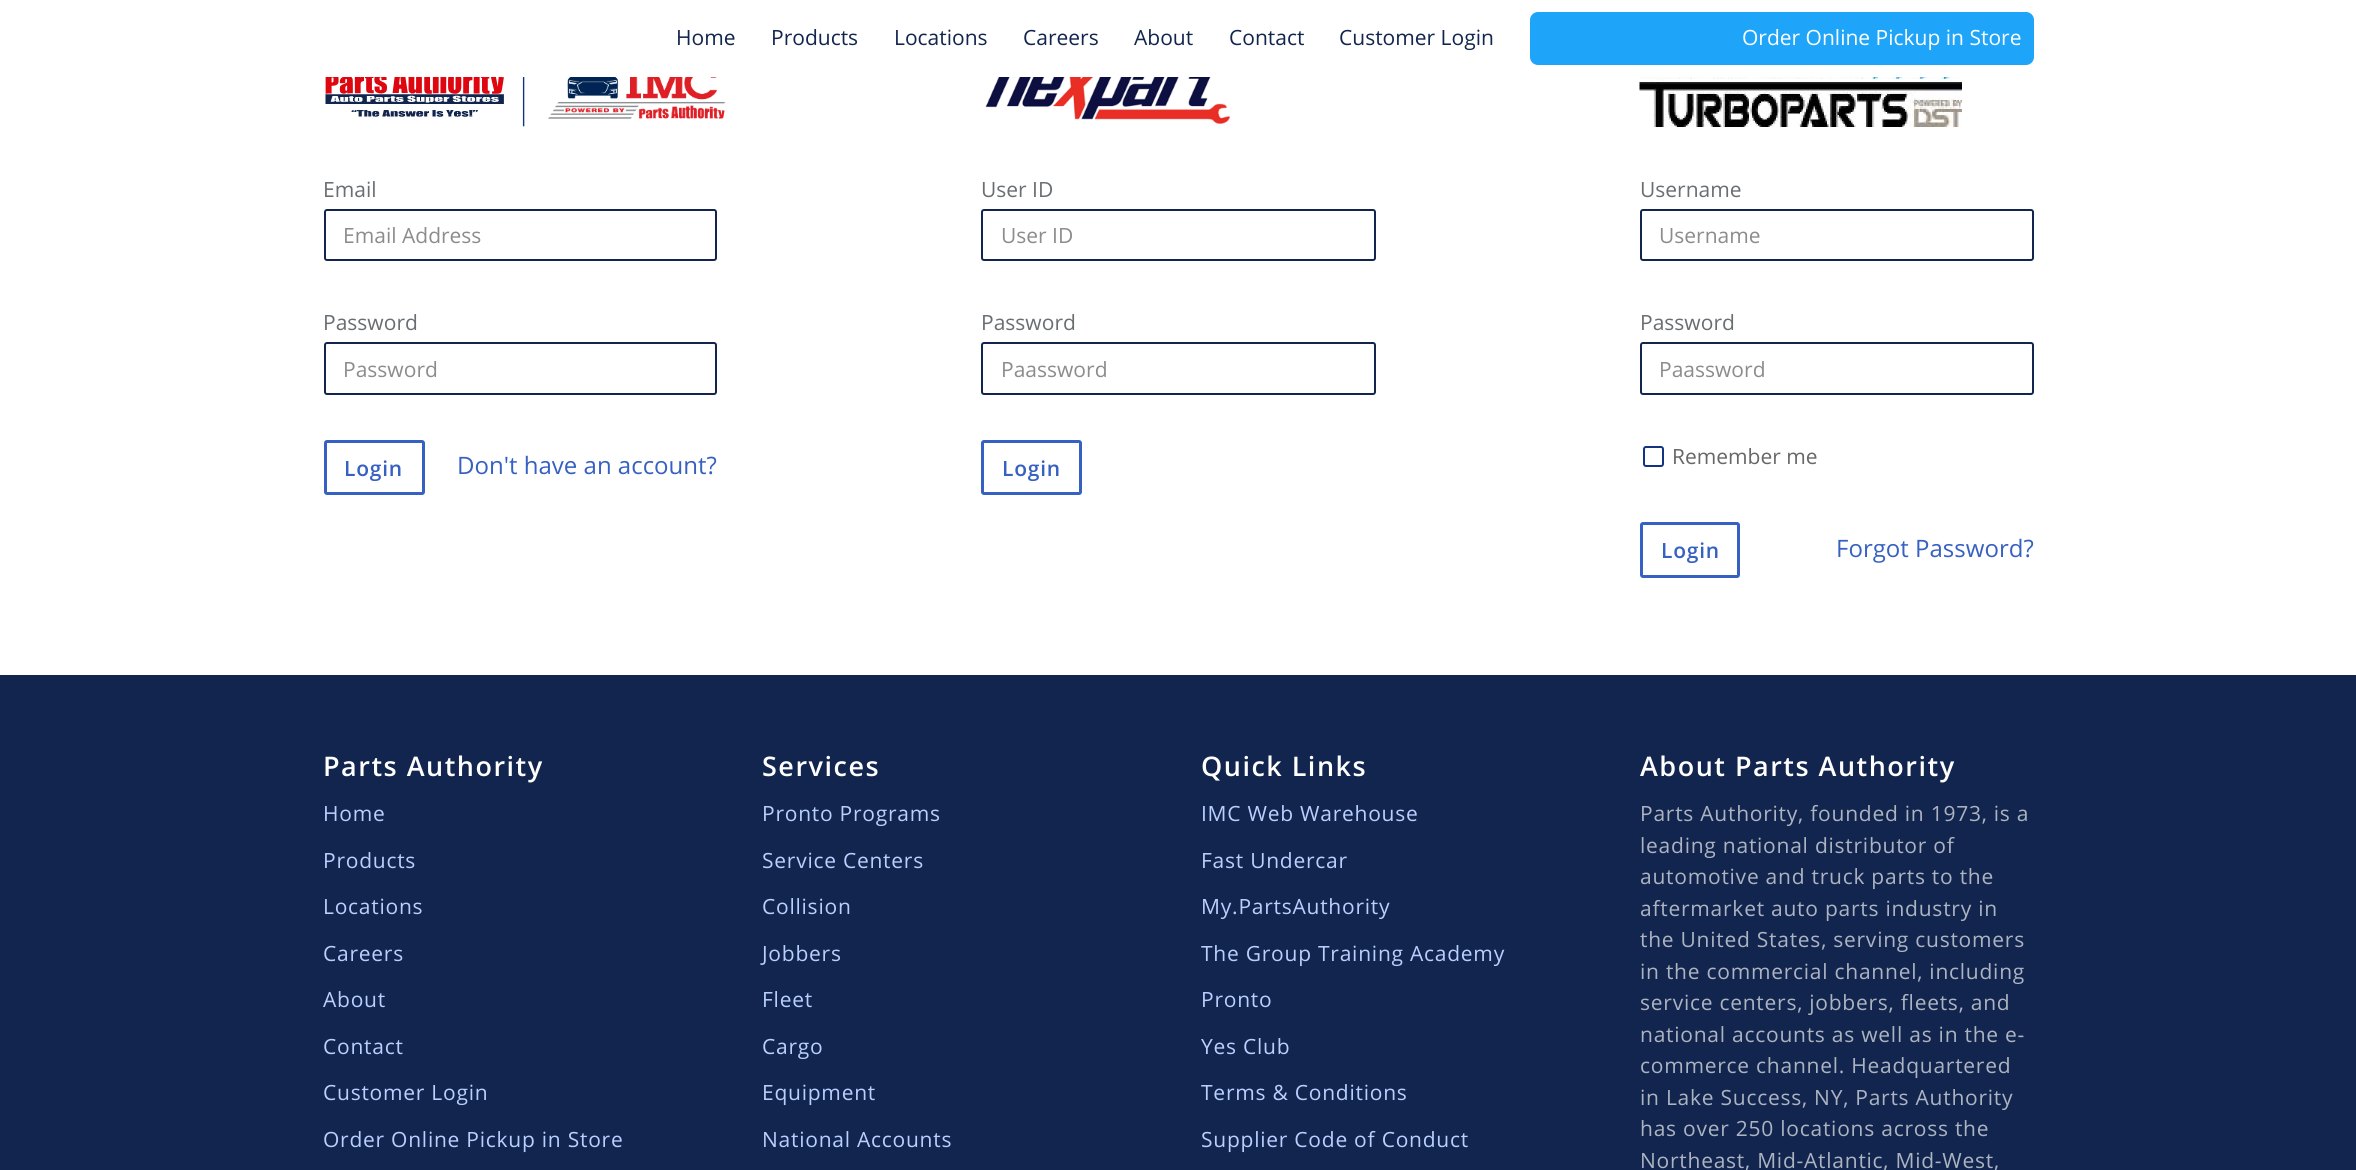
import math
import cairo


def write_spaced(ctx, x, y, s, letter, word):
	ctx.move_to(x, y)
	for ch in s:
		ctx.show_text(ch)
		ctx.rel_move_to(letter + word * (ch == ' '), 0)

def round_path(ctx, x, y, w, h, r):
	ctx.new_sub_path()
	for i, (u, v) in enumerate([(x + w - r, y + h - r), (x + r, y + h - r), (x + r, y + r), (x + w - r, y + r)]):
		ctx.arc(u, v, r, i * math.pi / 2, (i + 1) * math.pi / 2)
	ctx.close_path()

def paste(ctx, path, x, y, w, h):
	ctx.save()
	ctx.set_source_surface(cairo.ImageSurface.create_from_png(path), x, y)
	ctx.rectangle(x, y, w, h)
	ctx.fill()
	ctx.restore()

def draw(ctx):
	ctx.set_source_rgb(1, 1, 1)
	ctx.paint()
	ctx.select_font_face('Open Sans')
	ctx.set_font_size(21)
	ctx.set_source_rgb(0.071, 0.145, 0.306)
	for x, y, s in [
		(676, 45, 'Home'),
		(771, 45, 'Products'),
		(894, 45, 'Locations'),
		(1023, 45, 'Careers'),
		(1134, 45, 'About'),
		(1229, 45, 'Contact'),
		(1339, 45, 'Customer Login'),
	]:
		ctx.move_to(x, y)
		ctx.show_text(s)
	ctx.set_source_rgb(0.118, 0.647, 0.973)
	round_path(ctx, 1530, 12, 504, 53, 8)
	ctx.fill()
	ctx.set_source_rgb(1, 1, 1)
	ctx.move_to(1742, 45)
	ctx.show_text('Order Online Pickup in Store')
	paste(ctx, 'media/1.png', 325, 77, 401, 50)
	ctx.set_source_rgb(0.408, 0.431, 0.447)
	ctx.move_to(323, 197)
	ctx.show_text('Email')
	round_path(ctx, 325, 210, 391, 50, 2)
	ctx.set_source_rgb(0.071, 0.145, 0.306)
	ctx.stroke()
	ctx.set_source_rgb(0.549, 0.549, 0.549)
	ctx.move_to(343, 243)
	ctx.show_text('Email Address')
	ctx.set_source_rgb(0.408, 0.431, 0.447)
	ctx.move_to(323, 330)
	ctx.show_text('Password')
	round_path(ctx, 325, 343, 391, 51, 2)
	ctx.set_source_rgb(0.071, 0.145, 0.306)
	ctx.stroke()
	ctx.set_source_rgb(0.549, 0.549, 0.549)
	ctx.move_to(343, 377)
	ctx.show_text('Password')
	round_path(ctx, 325.5, 441.5, 98, 52, 1.5)
	ctx.set_source_rgb(0.212, 0.38, 0.761)
	ctx.set_line_width(3)
	ctx.stroke()
	ctx.select_font_face('Open Sans SemiBold')
	write_spaced(ctx, 344, 476, 'Login', 0.75, 0)
	ctx.select_font_face('Open Sans')
	ctx.set_font_size(24)
	ctx.move_to(457, 474)
	ctx.show_text('Don\'t have an account?')
	paste(ctx, 'media/2.png', 985, 77, 245, 47)
	ctx.set_font_size(21)
	ctx.set_source_rgb(0.408, 0.431, 0.447)
	ctx.move_to(981, 197)
	ctx.show_text('User ID')
	round_path(ctx, 982, 210, 393, 50, 2)
	ctx.set_source_rgb(0.071, 0.145, 0.306)
	ctx.set_line_width(2)
	ctx.stroke()
	ctx.set_source_rgb(0.549, 0.549, 0.549)
	ctx.move_to(1001, 243)
	ctx.show_text('User ID')
	ctx.set_source_rgb(0.408, 0.431, 0.447)
	ctx.move_to(981, 330)
	ctx.show_text('Password')
	round_path(ctx, 982, 343, 393, 51, 2)
	ctx.set_source_rgb(0.071, 0.145, 0.306)
	ctx.stroke()
	ctx.set_source_rgb(0.549, 0.549, 0.549)
	ctx.move_to(1001, 377)
	ctx.show_text('Paassword')
	round_path(ctx, 982.5, 441.5, 98, 52, 1.5)
	ctx.set_source_rgb(0.212, 0.38, 0.761)
	ctx.set_line_width(3)
	ctx.stroke()
	ctx.select_font_face('Open Sans SemiBold')
	write_spaced(ctx, 1002, 476, 'Login', 0.75, 0)
	paste(ctx, 'media/3.png', 1639, 77, 323, 50)
	ctx.select_font_face('Open Sans')
	ctx.set_source_rgb(0.408, 0.431, 0.447)
	ctx.move_to(1640, 197)
	ctx.show_text('Username')
	round_path(ctx, 1641, 210, 392, 50, 2)
	ctx.set_source_rgb(0.071, 0.145, 0.306)
	ctx.set_line_width(2)
	ctx.stroke()
	ctx.set_source_rgb(0.549, 0.549, 0.549)
	ctx.move_to(1659, 243)
	ctx.show_text('Username')
	ctx.set_source_rgb(0.408, 0.431, 0.447)
	ctx.move_to(1640, 330)
	ctx.show_text('Password')
	round_path(ctx, 1641, 343, 392, 51, 2)
	ctx.set_source_rgb(0.071, 0.145, 0.306)
	ctx.stroke()
	ctx.set_source_rgb(0.549, 0.549, 0.549)
	ctx.move_to(1659, 377)
	ctx.show_text('Paassword')
	round_path(ctx, 1644, 447, 19, 19, 2)
	ctx.set_source_rgb(0.071, 0.2, 0.502)
	ctx.stroke()
	ctx.set_source_rgb(0.404, 0.404, 0.404)
	ctx.move_to(1672, 464)
	ctx.show_text('Remember me')
	round_path(ctx, 1641.5, 523.5, 97, 53, 1.5)
	ctx.set_source_rgb(0.212, 0.38, 0.761)
	ctx.set_line_width(3)
	ctx.stroke()
	ctx.select_font_face('Open Sans SemiBold')
	write_spaced(ctx, 1661, 558, 'Login', 0.75, 0)
	ctx.select_font_face('Open Sans')
	ctx.set_font_size(24)
	ctx.move_to(1836, 557)
	ctx.show_text('Forgot Password?')
	ctx.set_source_rgb(0.071, 0.145, 0.306)
	ctx.rectangle(0, 675, 2356, 495)
	ctx.fill()
	ctx.select_font_face('Open Sans SemiBold')
	ctx.set_font_size(27)
	ctx.set_source_rgb(1, 1, 1)
	write_spaced(ctx, 323, 776, 'Parts Authority', 1.5, 0)
	ctx.select_font_face('Open Sans')
	ctx.set_font_size(21)
	ctx.set_source_rgb(0.725, 0.812, 1)
	for x, y, s in [
		(323, 821, 'Home'),
		(323, 868, 'Products'),
		(323, 914, 'Locations'),
		(323, 961, 'Careers'),
		(323, 1007, 'About'),
		(323, 1054, 'Contact'),
		(323, 1100, 'Customer Login'),
		(323, 1147, 'Order Online Pickup in Store'),
	]:
		write_spaced(ctx, x, y, s, 0.75, 0)
	ctx.select_font_face('Open Sans SemiBold')
	ctx.set_font_size(27)
	ctx.set_source_rgb(1, 1, 1)
	write_spaced(ctx, 762, 776, 'Services', 1.5, 0)
	ctx.select_font_face('Open Sans')
	ctx.set_font_size(21)
	ctx.set_source_rgb(0.725, 0.812, 1)
	for x, y, s in [
		(762, 821, 'Pronto Programs'),
		(762, 868, 'Service Centers'),
		(762, 914, 'Collision'),
		(762, 961, 'Jobbers'),
		(762, 1007, 'Fleet'),
		(762, 1054, 'Cargo'),
		(762, 1100, 'Equipment'),
		(762, 1147, 'National Accounts'),
	]:
		write_spaced(ctx, x, y, s, 0.75, 0)
	ctx.select_font_face('Open Sans SemiBold')
	ctx.set_font_size(27)
	ctx.set_source_rgb(1, 1, 1)
	write_spaced(ctx, 1201, 776, 'Quick Links', 1.5, 0)
	ctx.select_font_face('Open Sans')
	ctx.set_font_size(21)
	ctx.set_source_rgb(0.725, 0.812, 1)
	for x, y, s in [
		(1201, 821, 'IMC Web Warehouse'),
		(1201, 868, 'Fast Undercar'),
		(1201, 914, 'My.PartsAuthority'),
		(1201, 961, 'The Group Training Academy'),
		(1201, 1007, 'Pronto'),
		(1201, 1054, 'Yes Club'),
		(1201, 1100, 'Terms & Conditions'),
		(1201, 1147, 'Supplier Code of Conduct'),
	]:
		write_spaced(ctx, x, y, s, 0.75, 0)
	ctx.select_font_face('Open Sans SemiBold')
	ctx.set_font_size(27)
	ctx.set_source_rgb(1, 1, 1)
	write_spaced(ctx, 1640, 776, 'About Parts Authority', 1.5, 0)
	ctx.select_font_face('Open Sans')
	ctx.set_font_size(21)
	ctx.set_source_rgb(0.675, 0.702, 0.757)
	for x, y, s in [
		(1640, 821, 'Parts Authority, founded in 1973, is a'),
		(1640, 853, 'leading national distributor of'),
		(1640, 884, 'automotive and truck parts to the'),
		(1640, 916, 'aftermarket auto parts industry in'),
		(1640, 947, 'the United States, serving customers'),
		(1640, 979, 'in the commercial channel, including'),
		(1640, 1010, 'service centers, jobbers, fleets, and'),
		(1640, 1042, 'national accounts as well as in the e-'),
		(1640, 1073, 'commerce channel. Headquartered'),
		(1640, 1105, 'in Lake Success, NY, Parts Authority'),
		(1640, 1136, 'has over 250 locations across the'),
		(1640, 1168, 'Northeast, Mid-Atlantic, Mid-West,'),
	]:
		write_spaced(ctx, x, y, s, 0.75, 0)


surface = cairo.ImageSurface(cairo.FORMAT_RGB24, 2356, 1170)
ctx = cairo.Context(surface)
options = cairo.FontOptions()
options.set_hint_metrics(cairo.HINT_METRICS_OFF)
options.set_hint_style(cairo.HINT_STYLE_NONE)
ctx.set_font_options(options)
ctx.set_miter_limit(4)
draw(ctx)
surface.write_to_png('image.png')
